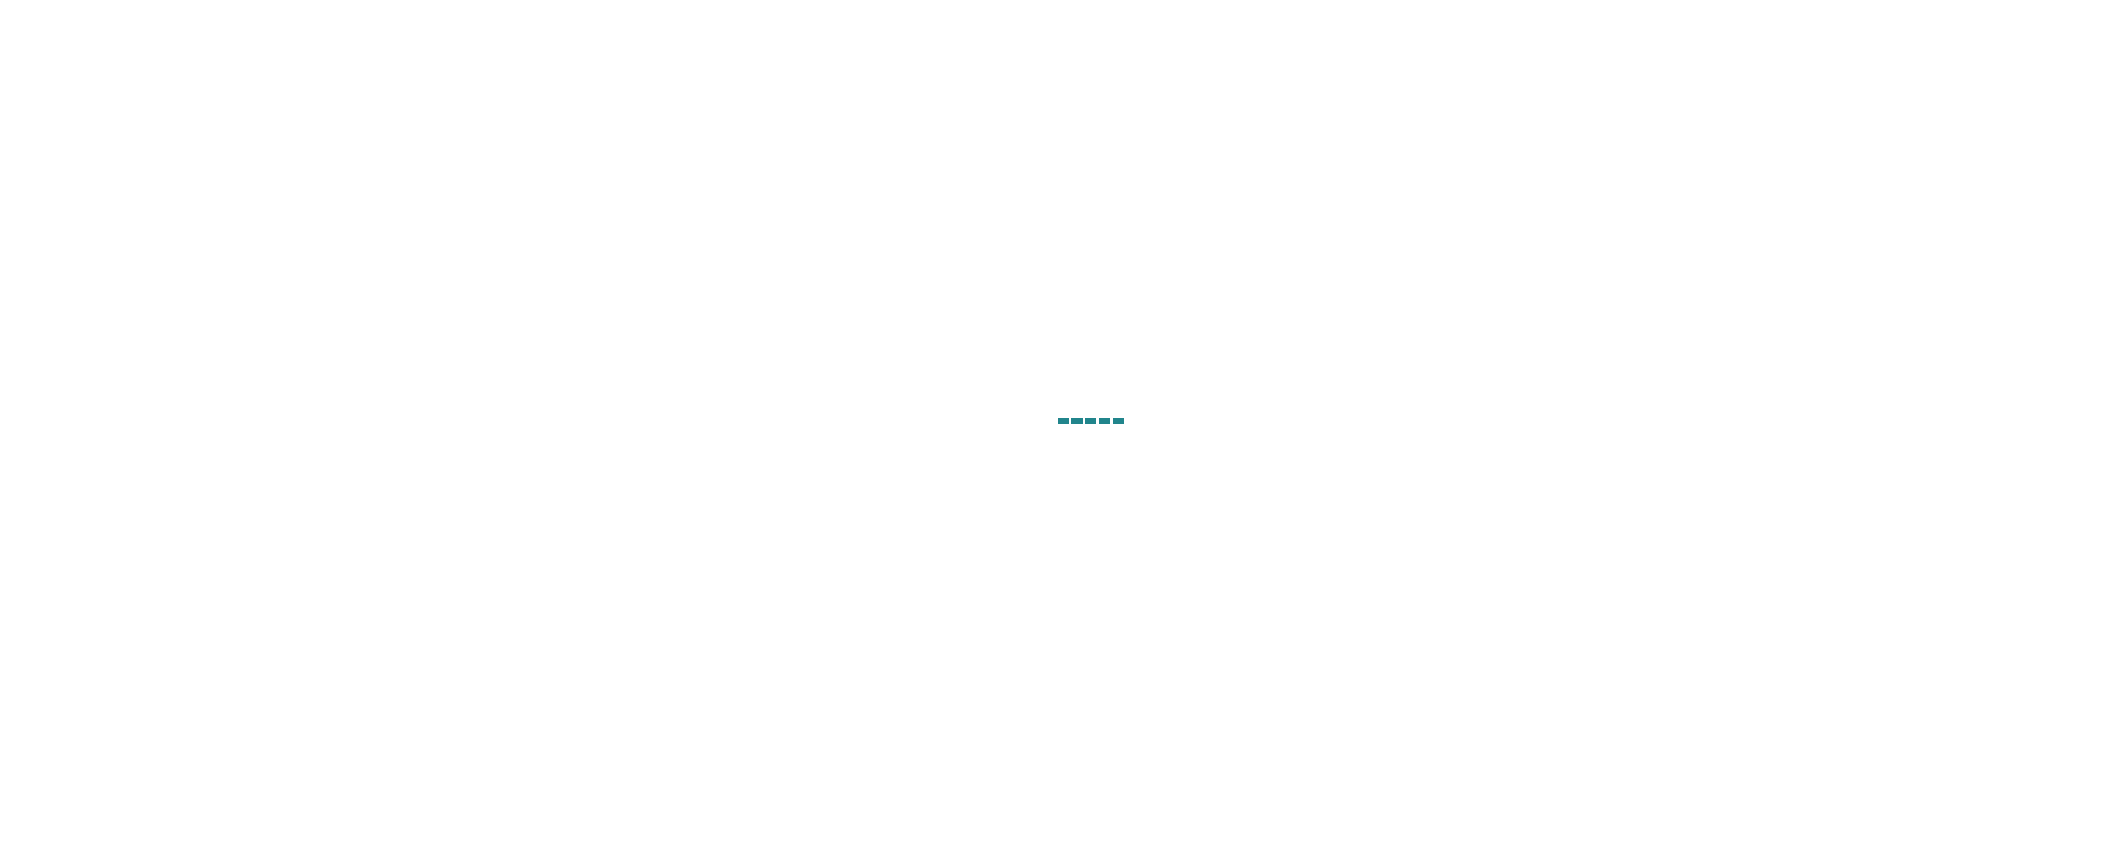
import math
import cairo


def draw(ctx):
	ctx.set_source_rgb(1, 1, 1)
	ctx.paint()
	ctx.set_source_rgb(0.129, 0.522, 0.549)
	ctx.rectangle(1058, 418, 11, 6)
	ctx.rectangle(1071, 418, 12, 6)
	ctx.rectangle(1085, 418, 11, 6)
	ctx.rectangle(1099, 418, 11, 6)
	ctx.rectangle(1113, 418, 11, 6)
	ctx.fill()


surface = cairo.ImageSurface(cairo.FORMAT_RGB24, 2115, 846)
ctx = cairo.Context(surface)
options = cairo.FontOptions()
options.set_hint_metrics(cairo.HINT_METRICS_OFF)
options.set_hint_style(cairo.HINT_STYLE_NONE)
ctx.set_font_options(options)
ctx.set_miter_limit(4)
draw(ctx)
surface.write_to_png('image.png')
